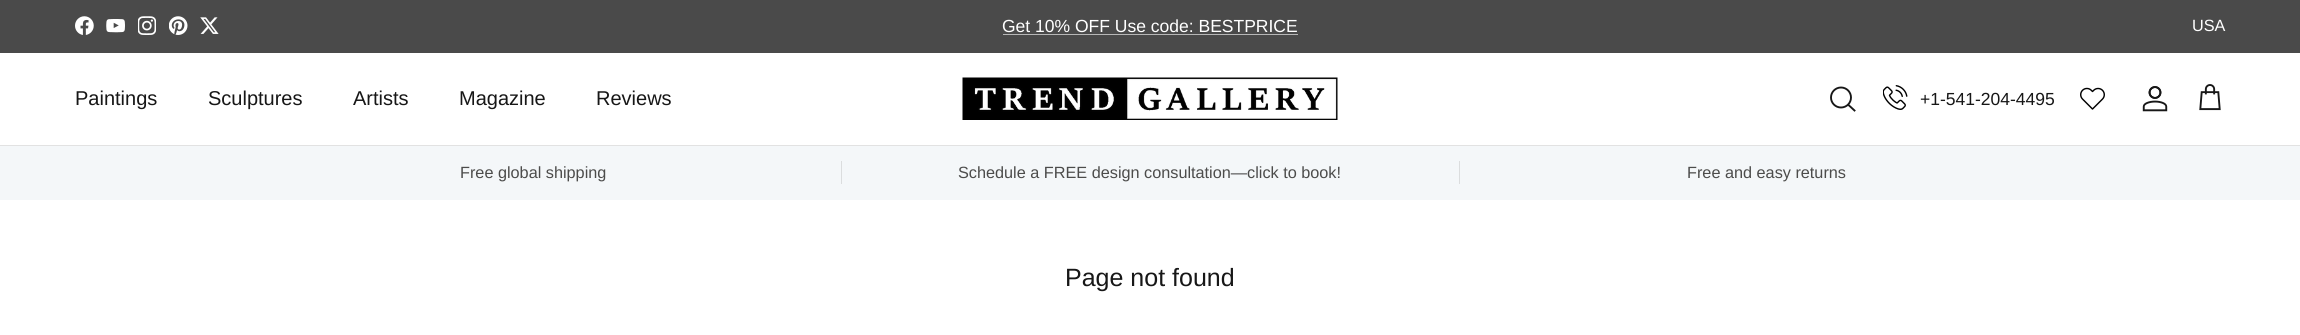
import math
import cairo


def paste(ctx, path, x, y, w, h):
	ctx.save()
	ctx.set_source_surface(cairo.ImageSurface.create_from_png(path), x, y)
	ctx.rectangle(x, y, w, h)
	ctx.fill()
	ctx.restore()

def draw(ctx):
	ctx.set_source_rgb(1, 1, 1)
	ctx.paint()
	ctx.set_source_rgb(0.29, 0.29, 0.29)
	ctx.rectangle(0, 0, 2300, 53)
	ctx.fill()
	paste(ctx, 'media/1.png', 75, 16, 19, 19)
	paste(ctx, 'media/2.png', 106, 19, 19, 14)
	paste(ctx, 'media/3.png', 138, 16, 18, 19)
	paste(ctx, 'media/4.png', 169, 16, 19, 19)
	paste(ctx, 'media/5.png', 200, 17, 19, 17)
	ctx.select_font_face('Arimo')
	ctx.set_font_size(17.5)
	ctx.set_source_rgb(1, 1, 1)
	ctx.move_to(1002, 32)
	ctx.show_text('Get 10% OFF Use code: BESTPRICE')
	ctx.set_source_rgb(0.718, 0.718, 0.718)
	ctx.rectangle(1003, 34, 295, 1)
	ctx.fill()
	ctx.set_font_size(16.25)
	ctx.set_source_rgb(1, 1, 1)
	ctx.move_to(2192, 31)
	ctx.show_text('USA')
	ctx.set_source_rgb(0.886, 0.886, 0.886)
	ctx.rectangle(0, 145, 2300, 1)
	ctx.fill()
	ctx.set_font_size(20)
	ctx.set_source_rgb(0.09, 0.09, 0.09)
	for x, y, s in [
		(75, 105, 'Paintings'),
		(208, 105, 'Sculptures'),
		(353, 105, 'Artists'),
		(459, 105, 'Magazine'),
		(596, 105, 'Reviews'),
	]:
		ctx.move_to(x, y)
		ctx.show_text(s)
	paste(ctx, 'media/6.png', 962, 77, 376, 43)
	ctx.arc(1841, 97.5, 10, 0, 2 * math.pi)
	ctx.set_line_width(1.9)
	ctx.stroke()
	ctx.new_path()
	ctx.move_to(1848.5, 105)
	ctx.line_to(1854.5, 110.5)
	ctx.set_line_cap(cairo.LINE_CAP_SQUARE)
	ctx.stroke()
	paste(ctx, 'media/7.png', 1883, 85, 25, 25)
	ctx.set_font_size(17.5)
	ctx.move_to(1920, 105)
	ctx.show_text('+1-541-204-4495')
	paste(ctx, 'media/8.png', 2080, 87, 25, 23)
	paste(ctx, 'media/9.png', 2142, 86, 26, 26)
	paste(ctx, 'media/10.png', 2199, 84, 22, 27)
	ctx.set_source_rgb(0.957, 0.965, 0.973)
	ctx.rectangle(0, 146, 2300, 54)
	ctx.fill()
	ctx.set_font_size(16.25)
	ctx.set_source_rgb(0.298, 0.298, 0.294)
	ctx.move_to(460, 178)
	ctx.show_text('Free global shipping')
	ctx.set_source_rgb(0.859, 0.867, 0.871)
	ctx.rectangle(841, 161, 1, 23)
	ctx.fill()
	ctx.set_source_rgb(0.298, 0.298, 0.294)
	ctx.move_to(958, 178)
	ctx.show_text('Schedule a FREE design consultation—click to book!')
	ctx.set_source_rgb(0.859, 0.867, 0.871)
	ctx.rectangle(1459, 161, 1, 23)
	ctx.fill()
	ctx.set_source_rgb(0.298, 0.298, 0.294)
	ctx.move_to(1687, 178)
	ctx.show_text('Free and easy returns')
	ctx.set_font_size(25)
	ctx.set_source_rgb(0.09, 0.09, 0.09)
	ctx.move_to(1065, 286)
	ctx.show_text('Page not found')


surface = cairo.ImageSurface(cairo.FORMAT_RGB24, 2300, 335)
ctx = cairo.Context(surface)
options = cairo.FontOptions()
options.set_hint_metrics(cairo.HINT_METRICS_OFF)
options.set_hint_style(cairo.HINT_STYLE_NONE)
ctx.set_font_options(options)
ctx.set_miter_limit(4)
draw(ctx)
surface.write_to_png('image.png')
